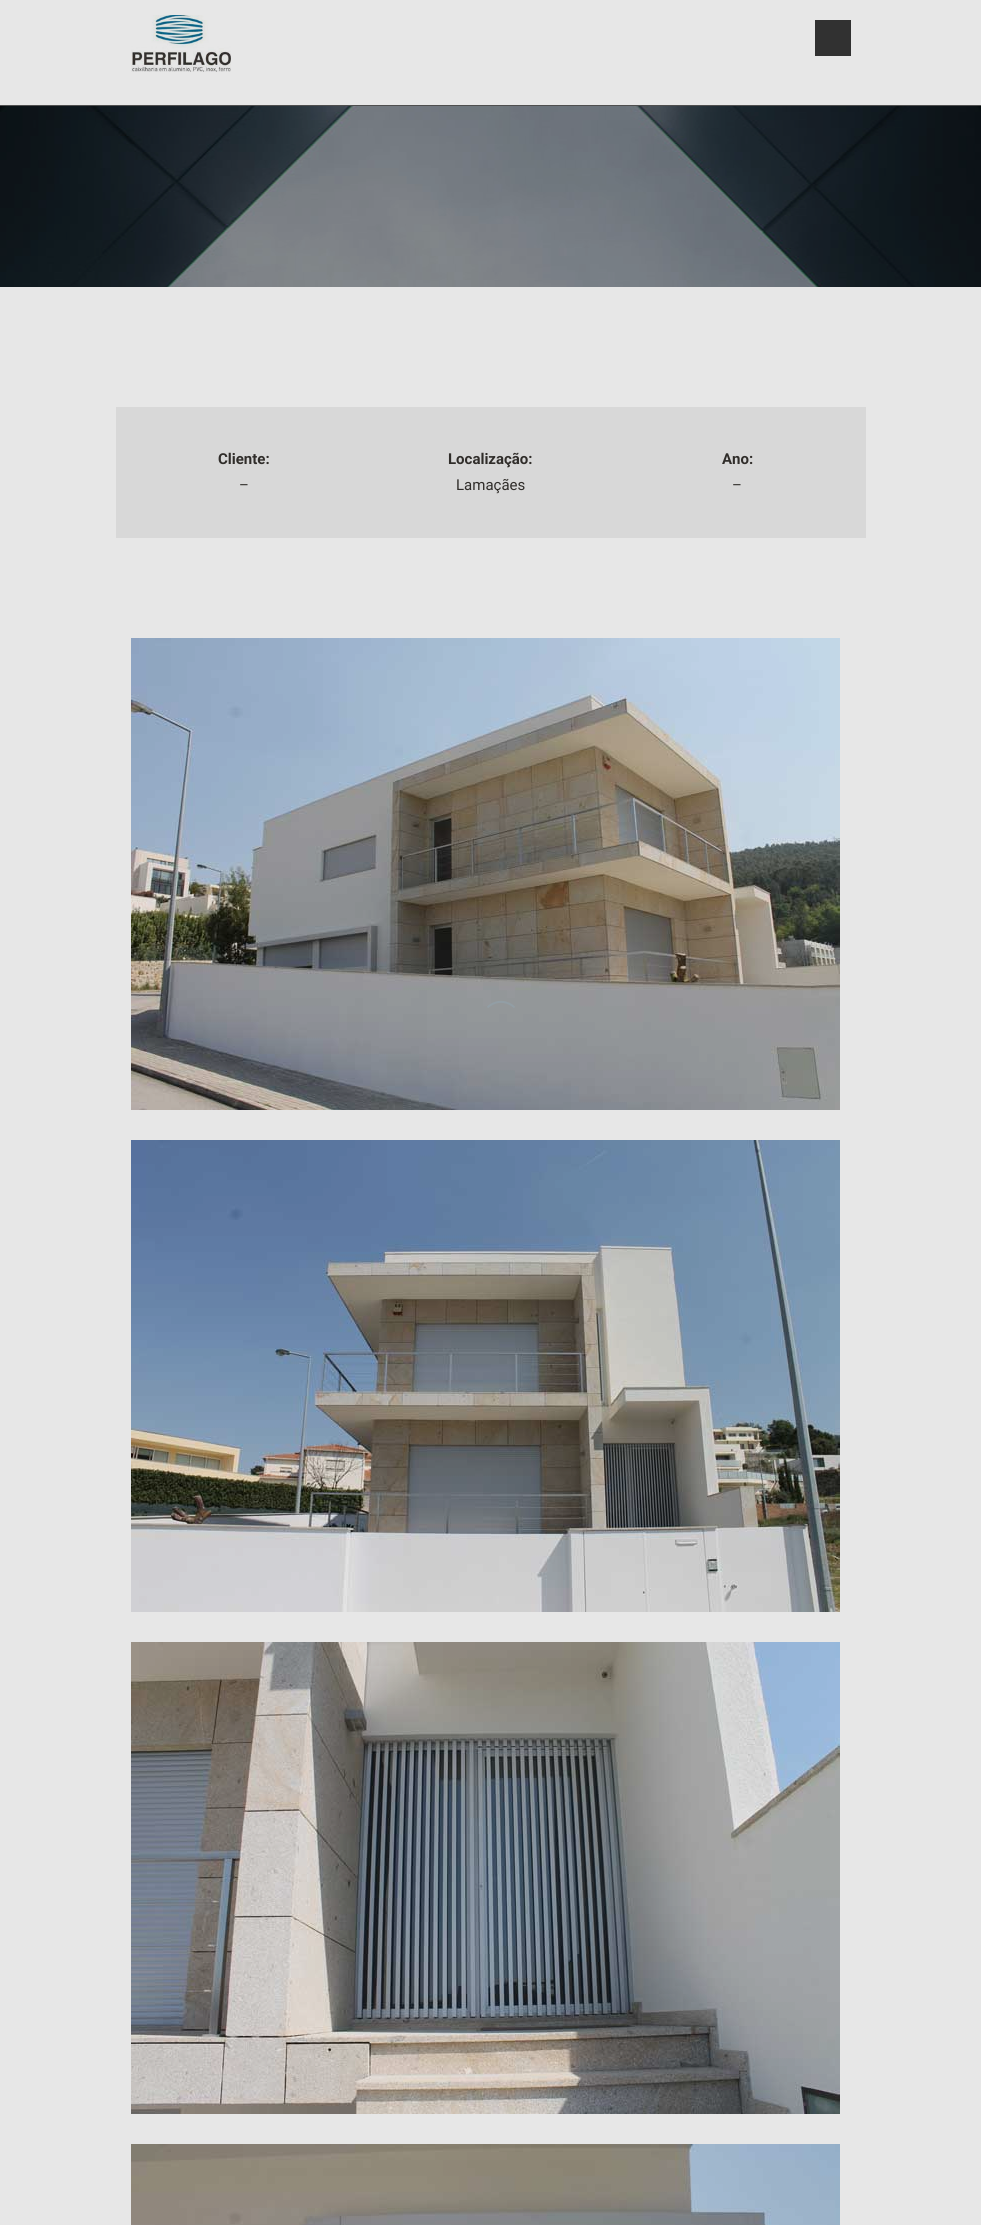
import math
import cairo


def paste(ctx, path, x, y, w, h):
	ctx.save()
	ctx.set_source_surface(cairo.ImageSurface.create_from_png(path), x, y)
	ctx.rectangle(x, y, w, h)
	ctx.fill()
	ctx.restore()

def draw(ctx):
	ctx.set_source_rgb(0.906, 0.906, 0.906)
	ctx.paint()
	ctx.set_source_rgb(0.31, 0.31, 0.31)
	ctx.rectangle(0, 105, 981, 1)
	ctx.fill()
	paste(ctx, 'media/1.png', 131, 15, 100, 57)
	ctx.set_source_rgb(0.192, 0.192, 0.192)
	ctx.rectangle(815, 20, 36, 36)
	ctx.fill()
	paste(ctx, 'media/2.png', 0, 106, 981, 181)
	ctx.set_source_rgb(0.847, 0.847, 0.847)
	ctx.rectangle(116, 407, 750, 131)
	ctx.fill()
	ctx.select_font_face('Roboto', cairo.FONT_SLANT_NORMAL, cairo.FONT_WEIGHT_BOLD)
	ctx.set_font_size(15)
	ctx.set_source_rgb(0.188, 0.176, 0.165)
	ctx.move_to(218, 464)
	ctx.show_text('Cliente:')
	ctx.select_font_face('Roboto')
	ctx.move_to(239, 490)
	ctx.show_text('–')
	ctx.select_font_face('Roboto', cairo.FONT_SLANT_NORMAL, cairo.FONT_WEIGHT_BOLD)
	ctx.move_to(448, 464)
	ctx.show_text('Localização:')
	ctx.select_font_face('Roboto')
	ctx.move_to(456, 490)
	ctx.show_text('Lamaçães')
	ctx.select_font_face('Roboto', cairo.FONT_SLANT_NORMAL, cairo.FONT_WEIGHT_BOLD)
	ctx.move_to(722, 464)
	ctx.show_text('Ano:')
	ctx.select_font_face('Roboto')
	ctx.move_to(732, 490)
	ctx.show_text('–')
	paste(ctx, 'media/3.png', 131, 638, 709, 472)
	paste(ctx, 'media/4.png', 131, 1140, 709, 472)
	paste(ctx, 'media/5.png', 131, 1642, 709, 472)
	paste(ctx, 'media/6.png', 131, 2144, 709, 81)
	ctx.new_path()
	ctx.move_to(487.5, 1007.5)
	ctx.curve_to(495, 1000, 507, 1000, 514.5, 1007.5)
	ctx.set_source_rgb(0.573, 0.62, 0.647)
	ctx.stroke()


surface = cairo.ImageSurface(cairo.FORMAT_RGB24, 981, 2225)
ctx = cairo.Context(surface)
options = cairo.FontOptions()
options.set_hint_metrics(cairo.HINT_METRICS_OFF)
options.set_hint_style(cairo.HINT_STYLE_NONE)
ctx.set_font_options(options)
ctx.set_miter_limit(4)
draw(ctx)
surface.write_to_png('image.png')
